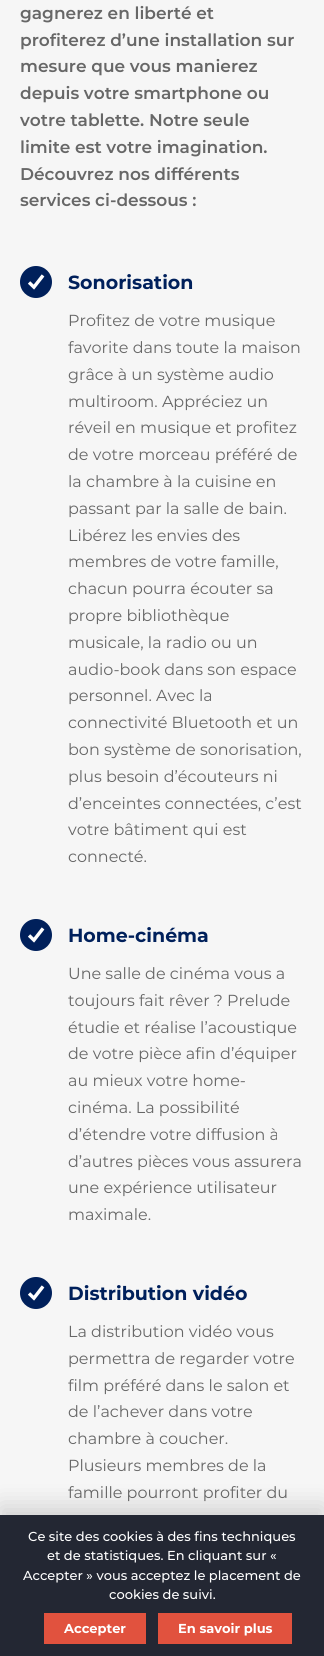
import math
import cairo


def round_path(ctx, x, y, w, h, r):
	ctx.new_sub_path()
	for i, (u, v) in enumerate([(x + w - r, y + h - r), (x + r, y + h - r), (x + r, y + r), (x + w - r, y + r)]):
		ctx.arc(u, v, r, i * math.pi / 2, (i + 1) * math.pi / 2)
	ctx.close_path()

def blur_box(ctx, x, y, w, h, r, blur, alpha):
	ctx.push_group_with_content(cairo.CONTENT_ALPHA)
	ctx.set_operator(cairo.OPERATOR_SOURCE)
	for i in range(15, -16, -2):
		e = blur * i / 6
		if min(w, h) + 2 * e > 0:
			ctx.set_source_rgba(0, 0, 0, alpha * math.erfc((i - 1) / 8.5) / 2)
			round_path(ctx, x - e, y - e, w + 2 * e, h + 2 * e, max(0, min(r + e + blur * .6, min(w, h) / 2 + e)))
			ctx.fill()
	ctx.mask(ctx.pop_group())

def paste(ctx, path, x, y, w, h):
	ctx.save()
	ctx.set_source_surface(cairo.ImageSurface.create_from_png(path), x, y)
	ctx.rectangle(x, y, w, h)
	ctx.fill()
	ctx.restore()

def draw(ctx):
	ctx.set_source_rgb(0.961, 0.961, 0.961)
	ctx.paint()
	ctx.select_font_face('Montserrat SemiBold')
	ctx.set_font_size(17)
	ctx.set_source_rgb(0.404, 0.404, 0.404)
	for x, y, s in [
		(20, 19, 'gagnerez en liberté et'),
		(20, 46, 'profiterez d’une installation sur'),
		(20, 72, 'mesure que vous manierez'),
		(20, 99, 'depuis votre smartphone ou'),
		(20, 126, 'votre tablette. Notre seule'),
		(20, 153, 'limite est votre imagination.'),
		(20, 180, 'Découvrez nos différents'),
		(20, 206, 'services ci-dessous :'),
	]:
		ctx.move_to(x, y)
		ctx.show_text(s)
	ctx.set_source_rgb(0, 0.125, 0.357)
	ctx.new_path()
	ctx.arc(36, 282, 16, 0, 2 * math.pi)
	ctx.fill()
	paste(ctx, 'media/1.png', 28, 274, 17, 16)
	ctx.select_font_face('Montserrat', cairo.FONT_SLANT_NORMAL, cairo.FONT_WEIGHT_BOLD)
	ctx.set_font_size(19)
	ctx.move_to(68, 289)
	ctx.show_text('Sonorisation')
	ctx.select_font_face('Montserrat')
	ctx.set_font_size(16)
	ctx.set_source_rgb(0.404, 0.404, 0.404)
	for x, y, s in [
		(68, 326, 'Profitez de votre musique'),
		(68, 353, 'favorite dans toute la maison'),
		(68, 380, 'grâce à un système audio'),
		(68, 407, 'multiroom. Appréciez un'),
		(68, 433, 'réveil en musique et profitez'),
		(68, 460, 'de votre morceau préféré de'),
		(68, 487, 'la chambre à la cuisine en'),
		(68, 514, 'passant par la salle de bain.'),
		(68, 541, 'Libérez les envies des'),
		(68, 567, 'membres de votre famille,'),
		(68, 594, 'chacun pourra écouter sa'),
		(68, 621, 'propre bibliothèque'),
		(68, 648, 'musicale, la radio ou un'),
		(68, 675, 'audio-book dans son espace'),
		(68, 701, 'personnel. Avec la'),
		(68, 728, 'connectivité Bluetooth et un'),
		(68, 755, 'bon système de sonorisation,'),
		(68, 782, 'plus besoin d’écouteurs ni'),
		(68, 809, 'd’enceintes connectées, c’est'),
		(68, 835, 'votre bâtiment qui est'),
		(68, 862, 'connecté.'),
	]:
		ctx.move_to(x, y)
		ctx.show_text(s)
	ctx.set_source_rgb(0, 0.125, 0.357)
	ctx.new_path()
	ctx.arc(36, 935, 16, 0, 2 * math.pi)
	ctx.fill()
	paste(ctx, 'media/1.png', 28, 927, 17, 16)
	ctx.select_font_face('Montserrat', cairo.FONT_SLANT_NORMAL, cairo.FONT_WEIGHT_BOLD)
	ctx.set_font_size(19)
	ctx.move_to(68, 942)
	ctx.show_text('Home-cinéma')
	ctx.select_font_face('Montserrat')
	ctx.set_font_size(16)
	ctx.set_source_rgb(0.404, 0.404, 0.404)
	for x, y, s in [
		(68, 979, 'Une salle de cinéma vous a'),
		(68, 1006, 'toujours fait rêver ? Prelude'),
		(68, 1033, 'étudie et réalise l’acoustique'),
		(68, 1059, 'de votre pièce afin d’équiper'),
		(68, 1086, 'au mieux votre home-'),
		(68, 1113, 'cinéma. La possibilité'),
		(68, 1140, 'd’étendre votre diffusion à'),
		(68, 1167, 'd’autres pièces vous assurera'),
		(68, 1193, 'une expérience utilisateur'),
		(68, 1220, 'maximale.'),
	]:
		ctx.move_to(x, y)
		ctx.show_text(s)
	ctx.set_source_rgb(0, 0.125, 0.357)
	ctx.new_path()
	ctx.arc(36, 1293, 16, 0, 2 * math.pi)
	ctx.fill()
	paste(ctx, 'media/1.png', 28, 1285, 17, 16)
	ctx.select_font_face('Montserrat', cairo.FONT_SLANT_NORMAL, cairo.FONT_WEIGHT_BOLD)
	ctx.set_font_size(19)
	ctx.move_to(68, 1300)
	ctx.show_text('Distribution vidéo')
	ctx.select_font_face('Montserrat')
	ctx.set_font_size(16)
	ctx.set_source_rgb(0.404, 0.404, 0.404)
	for x, y, s in [
		(68, 1337, 'La distribution vidéo vous'),
		(68, 1364, 'permettra de regarder votre'),
		(68, 1391, 'film préféré dans le salon et'),
		(68, 1417, 'de l’achever dans votre'),
		(68, 1444, 'chambre à coucher.'),
		(68, 1471, 'Plusieurs membres de la'),
		(68, 1498, 'famille pourront profiter du'),
	]:
		ctx.move_to(x, y)
		ctx.show_text(s)
	ctx.set_source_rgb(0, 0, 0)
	blur_box(ctx, 0, 1506, 324, 141, 0, 12, 0.15)
	ctx.set_source_rgb(0.137, 0.153, 0.2)
	ctx.rectangle(0, 1515, 324, 141)
	ctx.fill()
	ctx.select_font_face('Montserrat Medium')
	ctx.set_font_size(13)
	ctx.set_source_rgb(1, 1, 1)
	for x, y, s in [
		(28, 1541, 'Ce site des cookies à des fins techniques'),
		(47, 1560, 'et de statistiques. En cliquant sur «'),
		(23, 1580, 'Accepter » vous acceptez le placement de'),
		(109, 1599, 'cookies de suivi.'),
	]:
		ctx.move_to(x, y)
		ctx.show_text(s)
	ctx.set_source_rgb(0.882, 0.322, 0.243)
	ctx.rectangle(44, 1613, 102, 31)
	ctx.fill()
	ctx.select_font_face('Montserrat', cairo.FONT_SLANT_NORMAL, cairo.FONT_WEIGHT_BOLD)
	ctx.set_source_rgb(1, 1, 1)
	ctx.move_to(64, 1633)
	ctx.show_text('Accepter')
	ctx.set_source_rgb(0.882, 0.322, 0.243)
	ctx.rectangle(158, 1613, 134, 31)
	ctx.fill()
	ctx.set_source_rgb(1, 1, 1)
	ctx.move_to(178, 1633)
	ctx.show_text('En savoir plus')


surface = cairo.ImageSurface(cairo.FORMAT_RGB24, 324, 1656)
ctx = cairo.Context(surface)
options = cairo.FontOptions()
options.set_hint_metrics(cairo.HINT_METRICS_OFF)
options.set_hint_style(cairo.HINT_STYLE_NONE)
ctx.set_font_options(options)
ctx.set_miter_limit(4)
draw(ctx)
surface.write_to_png('image.png')
